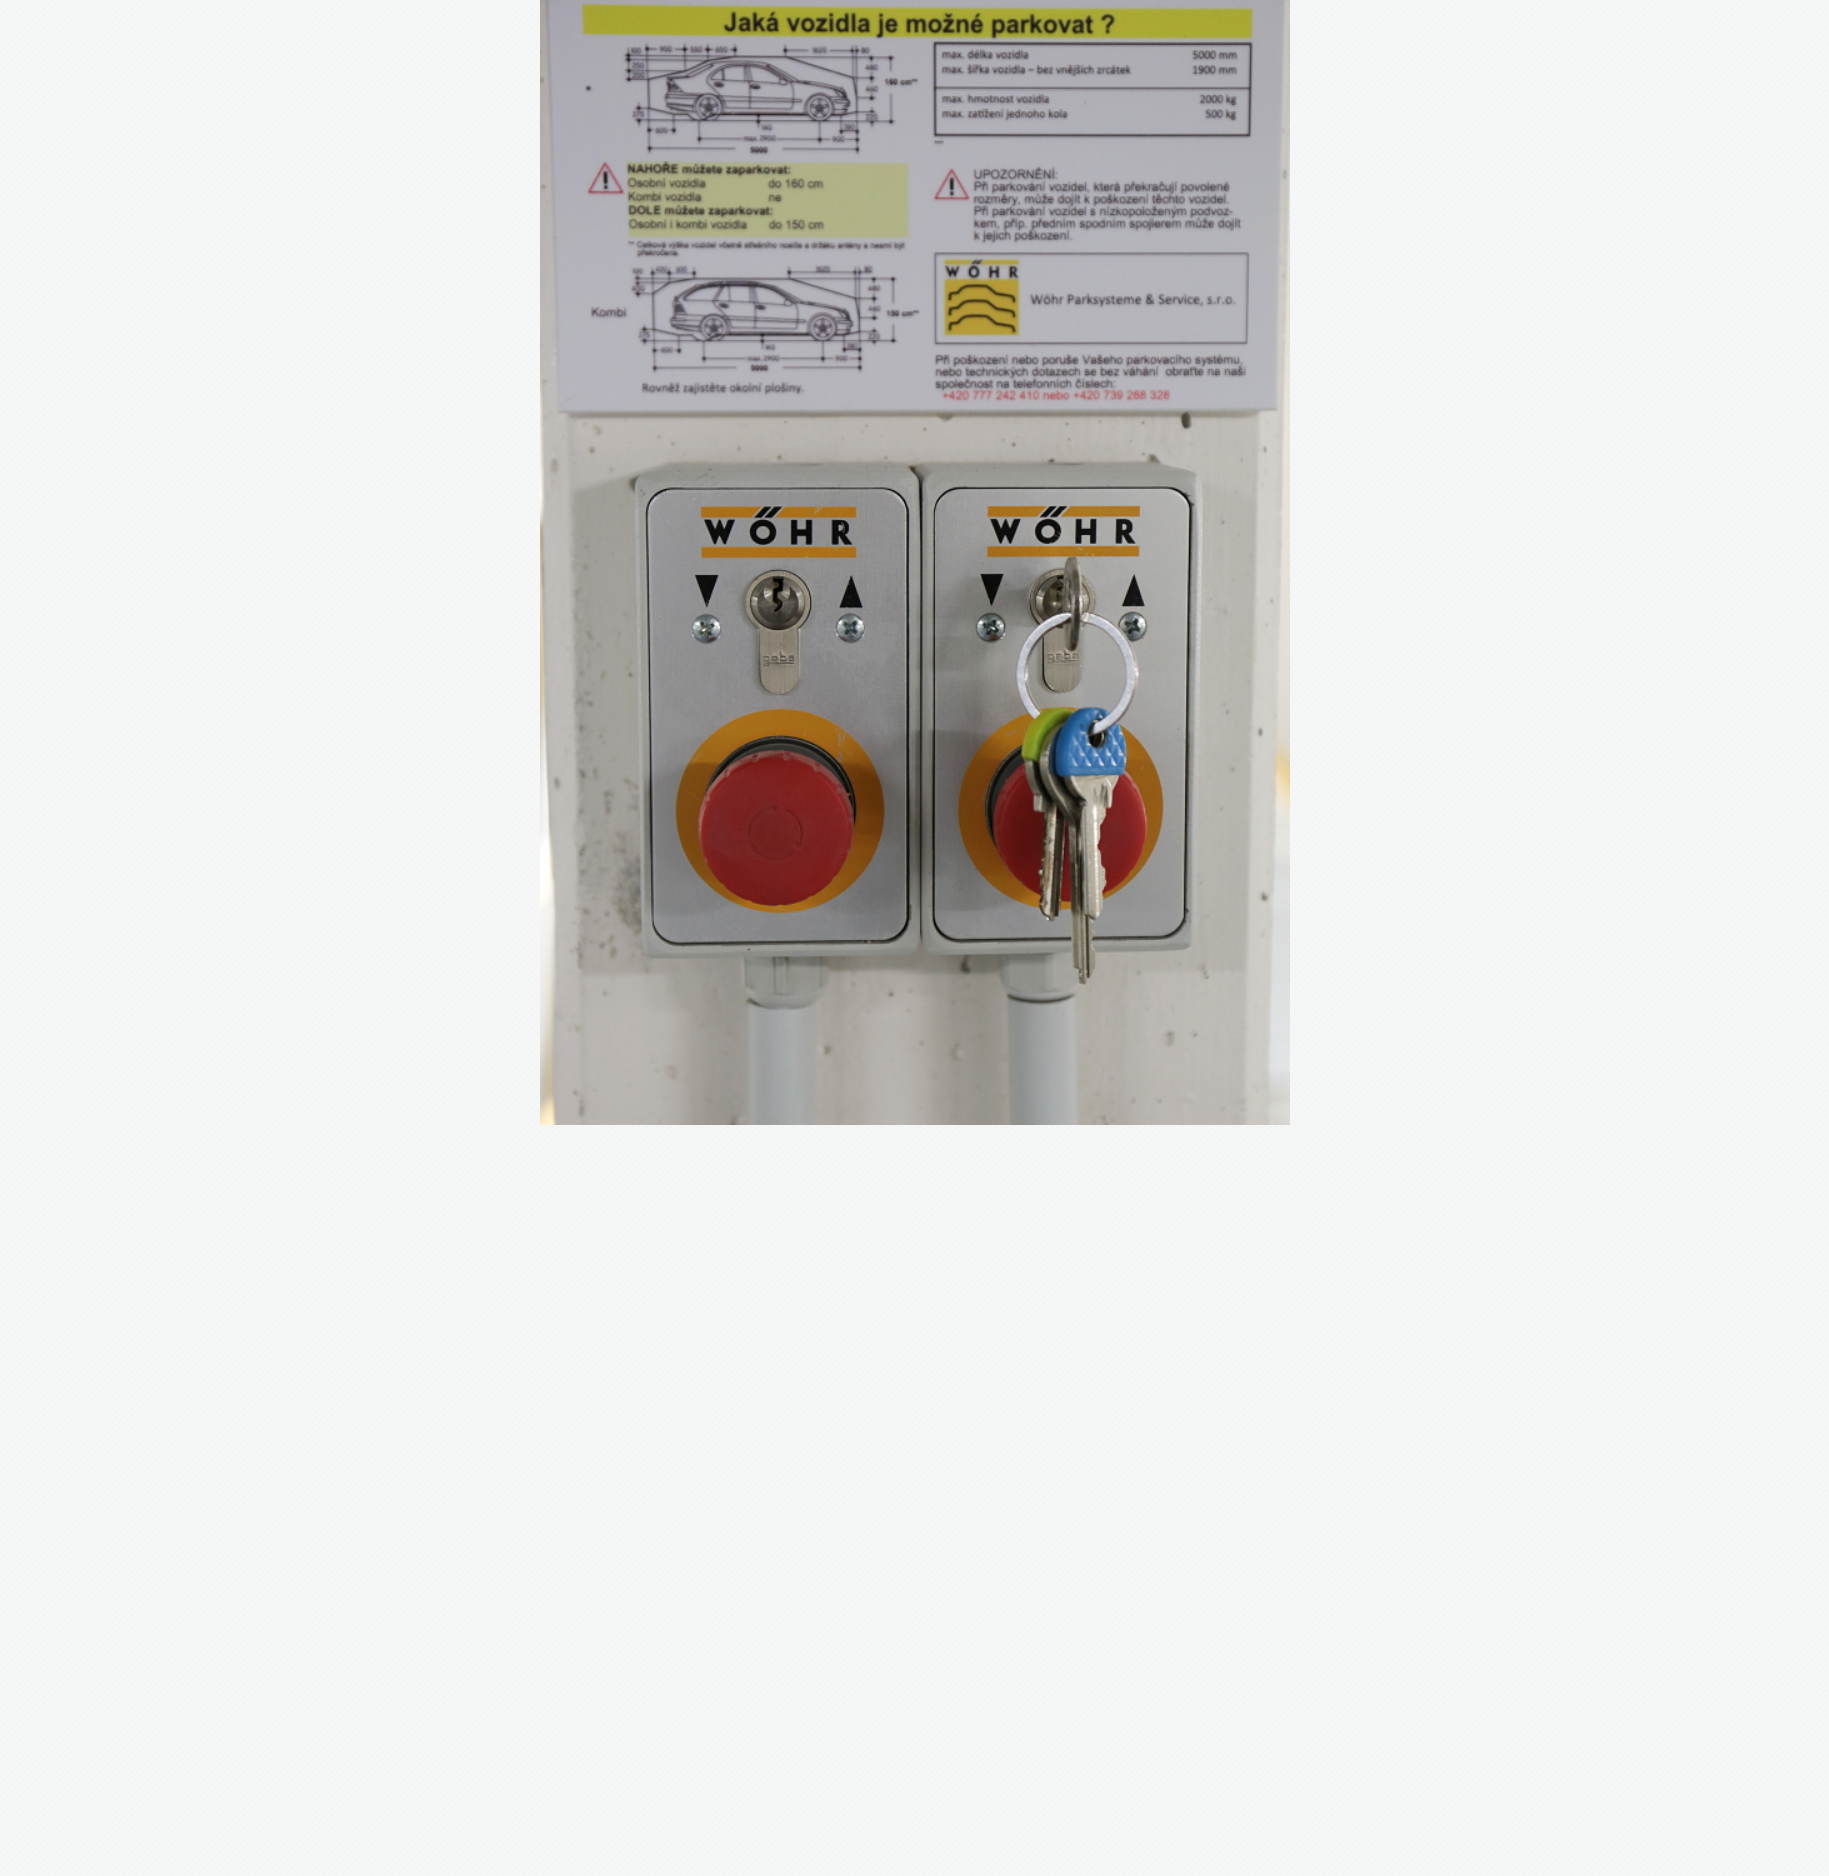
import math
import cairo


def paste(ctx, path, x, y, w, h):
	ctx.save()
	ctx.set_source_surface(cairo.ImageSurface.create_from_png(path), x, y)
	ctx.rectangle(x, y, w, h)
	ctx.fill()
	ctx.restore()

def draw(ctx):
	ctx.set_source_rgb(1, 1, 1)
	ctx.paint()
	paste(ctx, 'media/1.png', 0, 0, 1829, 1876)
	paste(ctx, 'media/2.png', 540, 0, 750, 1125)


surface = cairo.ImageSurface(cairo.FORMAT_RGB24, 1829, 1876)
ctx = cairo.Context(surface)
options = cairo.FontOptions()
options.set_hint_metrics(cairo.HINT_METRICS_OFF)
options.set_hint_style(cairo.HINT_STYLE_NONE)
ctx.set_font_options(options)
ctx.set_miter_limit(4)
draw(ctx)
surface.write_to_png('image.png')
